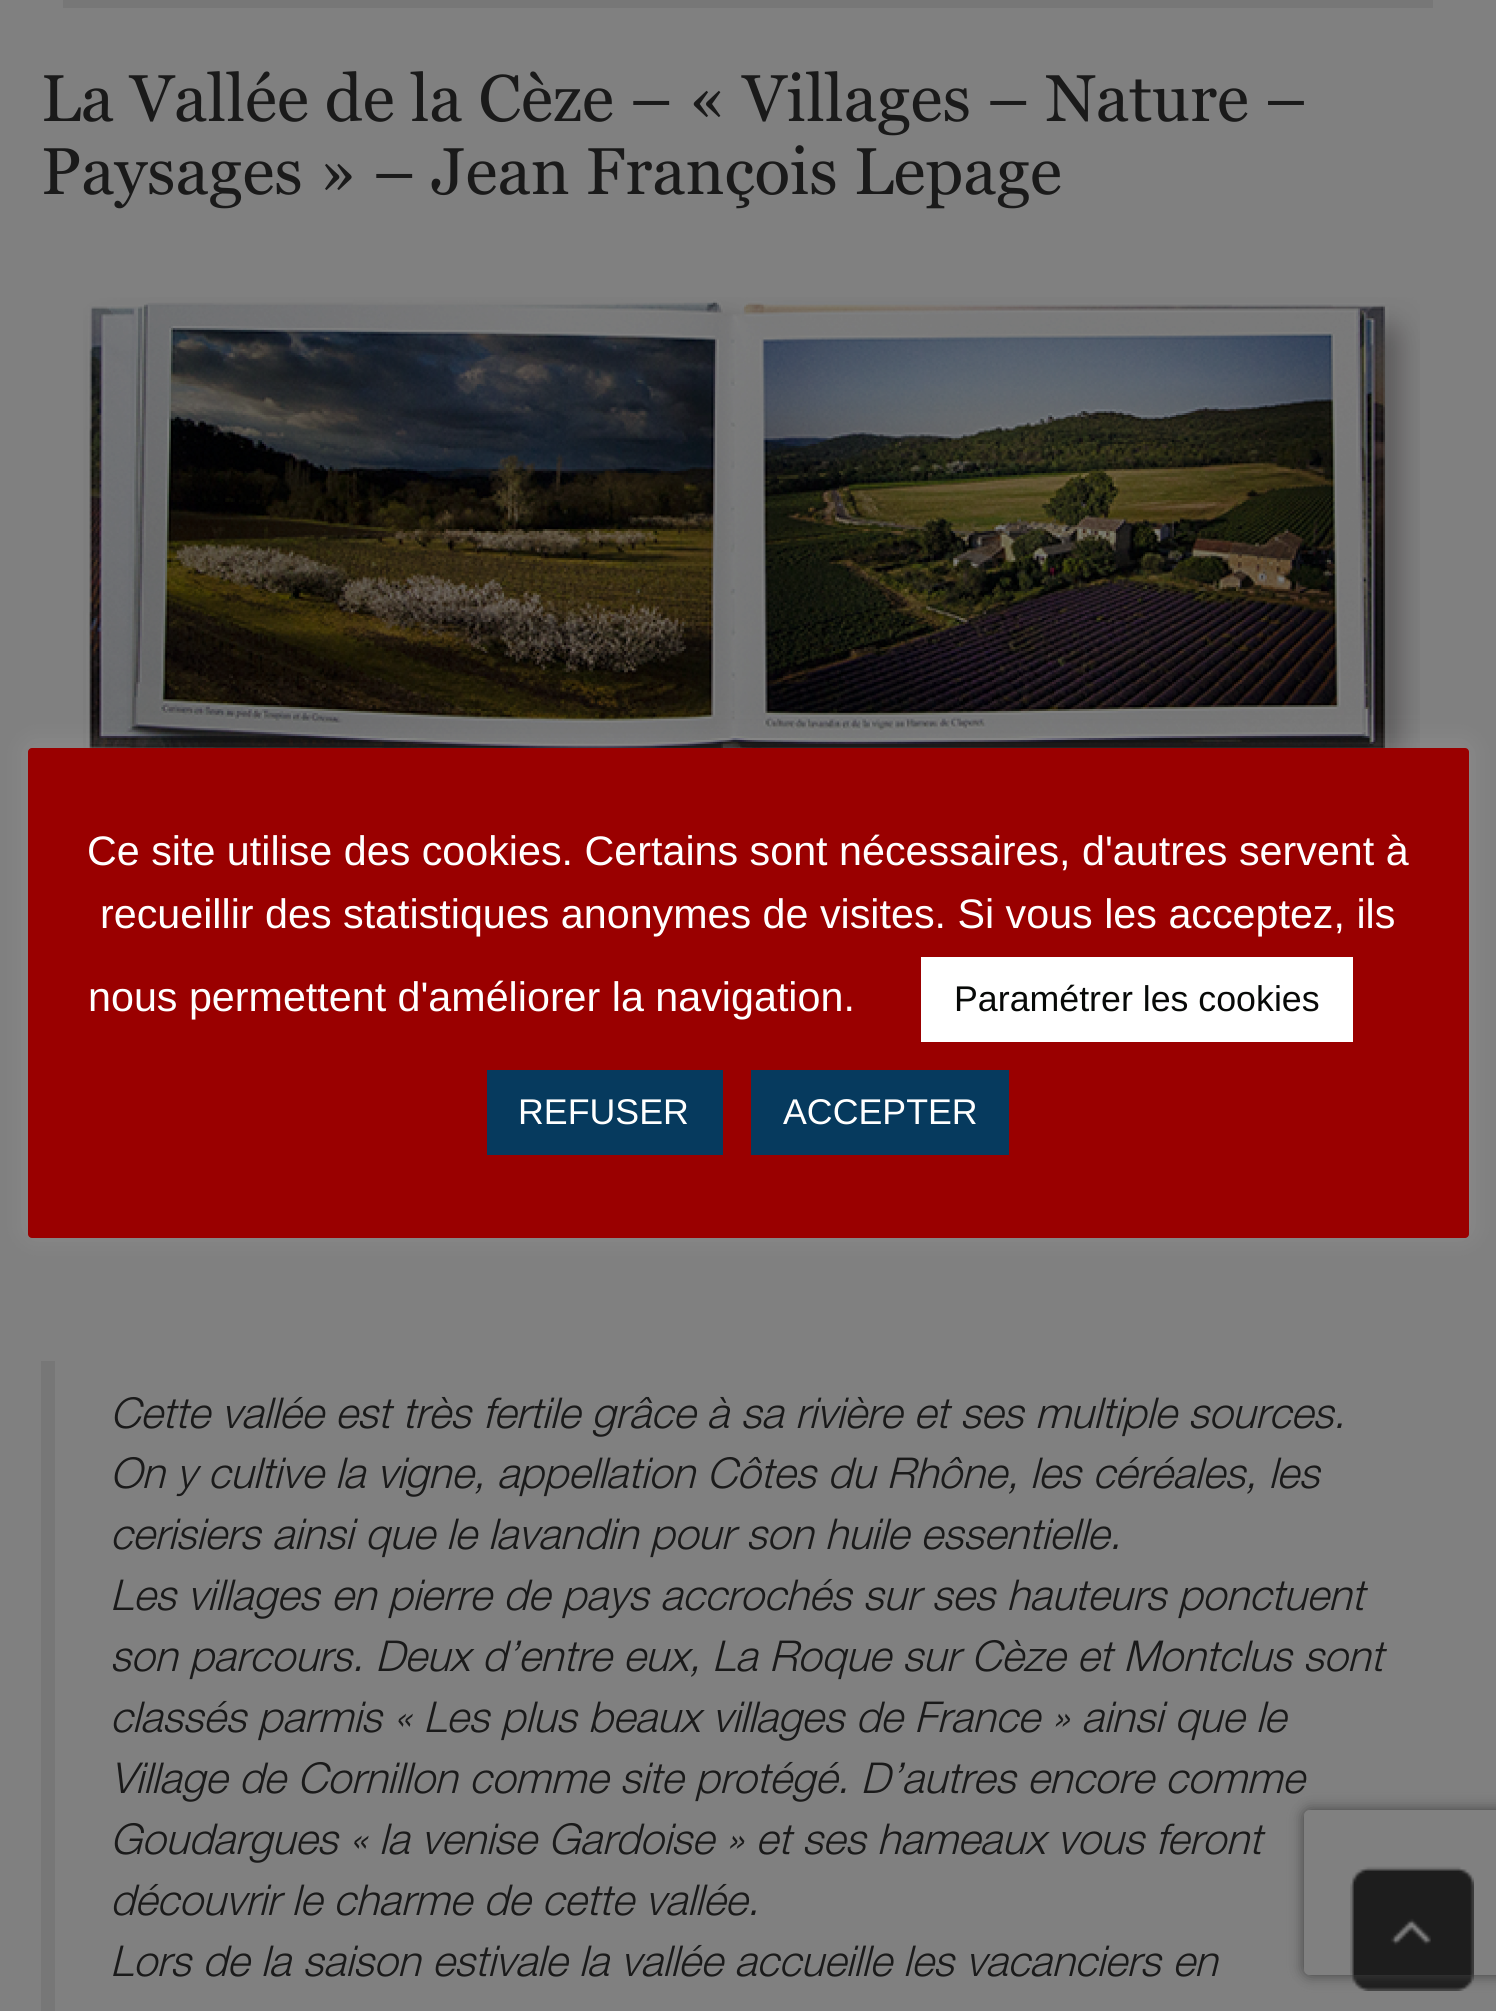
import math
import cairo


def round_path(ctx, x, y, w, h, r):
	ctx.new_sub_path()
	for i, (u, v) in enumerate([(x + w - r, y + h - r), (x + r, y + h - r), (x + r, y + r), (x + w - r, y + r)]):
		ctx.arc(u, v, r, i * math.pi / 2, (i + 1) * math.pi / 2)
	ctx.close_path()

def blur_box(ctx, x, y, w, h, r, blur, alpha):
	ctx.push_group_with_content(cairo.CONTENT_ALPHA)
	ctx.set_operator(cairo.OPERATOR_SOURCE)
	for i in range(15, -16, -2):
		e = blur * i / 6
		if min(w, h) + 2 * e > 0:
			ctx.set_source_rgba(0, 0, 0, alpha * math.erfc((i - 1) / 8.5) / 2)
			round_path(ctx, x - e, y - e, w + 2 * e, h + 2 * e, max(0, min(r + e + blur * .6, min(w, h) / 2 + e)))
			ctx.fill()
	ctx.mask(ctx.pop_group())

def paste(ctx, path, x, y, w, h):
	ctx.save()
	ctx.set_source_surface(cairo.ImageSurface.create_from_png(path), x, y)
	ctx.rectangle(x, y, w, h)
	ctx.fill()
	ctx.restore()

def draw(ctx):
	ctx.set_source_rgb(0.502, 0.502, 0.502)
	ctx.paint()
	ctx.set_source_rgb(0.467, 0.467, 0.467)
	ctx.rectangle(63, 0, 1370, 8)
	ctx.fill()
	ctx.select_font_face('Georgia')
	ctx.set_font_size(66)
	ctx.set_source_rgb(0.102, 0.102, 0.102)
	ctx.move_to(41, 121)
	ctx.show_text('La Vallée de la Cèze – « Villages – Nature –')
	ctx.move_to(41, 194)
	ctx.show_text('Paysages » – Jean François Lepage')
	paste(ctx, 'media/1.png', 83, 297, 1337, 451)
	ctx.set_source_rgb(0.467, 0.467, 0.467)
	ctx.rectangle(41, 1361, 14, 650)
	ctx.fill()
	ctx.select_font_face('Helvetica Neue Light', cairo.FONT_SLANT_ITALIC)
	ctx.set_font_size(42.6)
	ctx.set_source_rgb(0.102, 0.102, 0.102)
	for x, y, s in [
		(110, 1428, 'Cette vallée est très fertile grâce à sa rivière et ses multiple sources.'),
		(110, 1488, 'On y cultive la vigne, appellation Côtes du Rhône, les céréales, les'),
		(110, 1549, 'cerisiers ainsi que le lavandin pour son huile essentielle.'),
		(110, 1610, 'Les villages en pierre de pays accrochés sur ses hauteurs ponctuent'),
		(110, 1671, 'son parcours. Deux d’entre eux, La Roque sur Cèze et Montclus sont'),
		(110, 1732, 'classés parmis « Les plus beaux villages de France » ainsi que le'),
		(110, 1793, 'Village de Cornillon comme site protégé. D’autres encore comme'),
		(110, 1854, 'Goudargues « la venise Gardoise » et ses hameaux vous feront'),
		(110, 1915, 'découvrir le charme de cette vallée.'),
		(110, 1976, 'Lors de la saison estivale la vallée accueille les vacanciers en'),
	]:
		ctx.move_to(x, y)
		ctx.show_text(s)
	paste(ctx, 'media/2.png', 1350, 1866, 124, 125)
	ctx.set_source_rgb(0.675, 0.671, 0.671)
	blur_box(ctx, 28, 745, 1441, 490, 4, 14, 0.3)
	ctx.set_source_rgb(0.604, 0, 0)
	round_path(ctx, 28, 748, 1441, 490, 4)
	ctx.fill()
	ctx.select_font_face('Liberation Sans')
	ctx.set_font_size(41.25)
	ctx.set_source_rgb(1, 1, 1)
	for x, y, s in [
		(87, 865, 'Ce site utilise des cookies. Certains sont nécessaires, d\'autres servent à'),
		(100, 928, 'recueillir des statistiques anonymes de visites. Si vous les acceptez, ils'),
		(88, 1011, 'nous permettent d\'améliorer la navigation.'),
	]:
		ctx.move_to(x, y)
		ctx.show_text(s)
	ctx.rectangle(921, 957, 432, 85)
	ctx.fill()
	ctx.set_font_size(35.75)
	ctx.set_source_rgb(0.031, 0.039, 0.031)
	ctx.move_to(954, 1011)
	ctx.show_text('Paramétrer les cookies')
	ctx.set_source_rgb(0.027, 0.227, 0.369)
	ctx.rectangle(487, 1070, 236, 85)
	ctx.fill()
	ctx.set_source_rgb(1, 1, 1)
	ctx.move_to(518, 1124)
	ctx.show_text('REFUSER')
	ctx.set_source_rgb(0.027, 0.227, 0.369)
	ctx.rectangle(751, 1070, 258, 85)
	ctx.fill()
	ctx.set_source_rgb(1, 1, 1)
	ctx.move_to(783, 1124)
	ctx.show_text('ACCEPTER')
	ctx.save()
	ctx.set_fill_rule(cairo.FILL_RULE_EVEN_ODD)
	ctx.new_path()
	ctx.move_to(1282, 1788)
	ctx.line_to(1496, 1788)
	ctx.line_to(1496, 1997)
	ctx.line_to(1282, 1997)
	ctx.close_path()
	ctx.move_to(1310, 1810)
	ctx.line_to(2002, 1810)
	ctx.curve_to(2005.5, 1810, 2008, 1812.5, 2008, 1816)
	ctx.line_to(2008, 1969)
	ctx.curve_to(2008, 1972.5, 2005.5, 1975, 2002, 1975)
	ctx.line_to(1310, 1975)
	ctx.curve_to(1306.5, 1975, 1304, 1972.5, 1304, 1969)
	ctx.line_to(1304, 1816)
	ctx.curve_to(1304, 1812.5, 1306.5, 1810, 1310, 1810)
	ctx.close_path()
	ctx.clip()
	ctx.set_source_rgb(0.251, 0.251, 0.251)
	blur_box(ctx, 1304, 1810, 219, 165, 6, 7, 1)
	ctx.restore()


surface = cairo.ImageSurface(cairo.FORMAT_RGB24, 1496, 2011)
ctx = cairo.Context(surface)
options = cairo.FontOptions()
options.set_hint_metrics(cairo.HINT_METRICS_OFF)
options.set_hint_style(cairo.HINT_STYLE_NONE)
ctx.set_font_options(options)
ctx.set_miter_limit(4)
draw(ctx)
surface.write_to_png('image.png')
